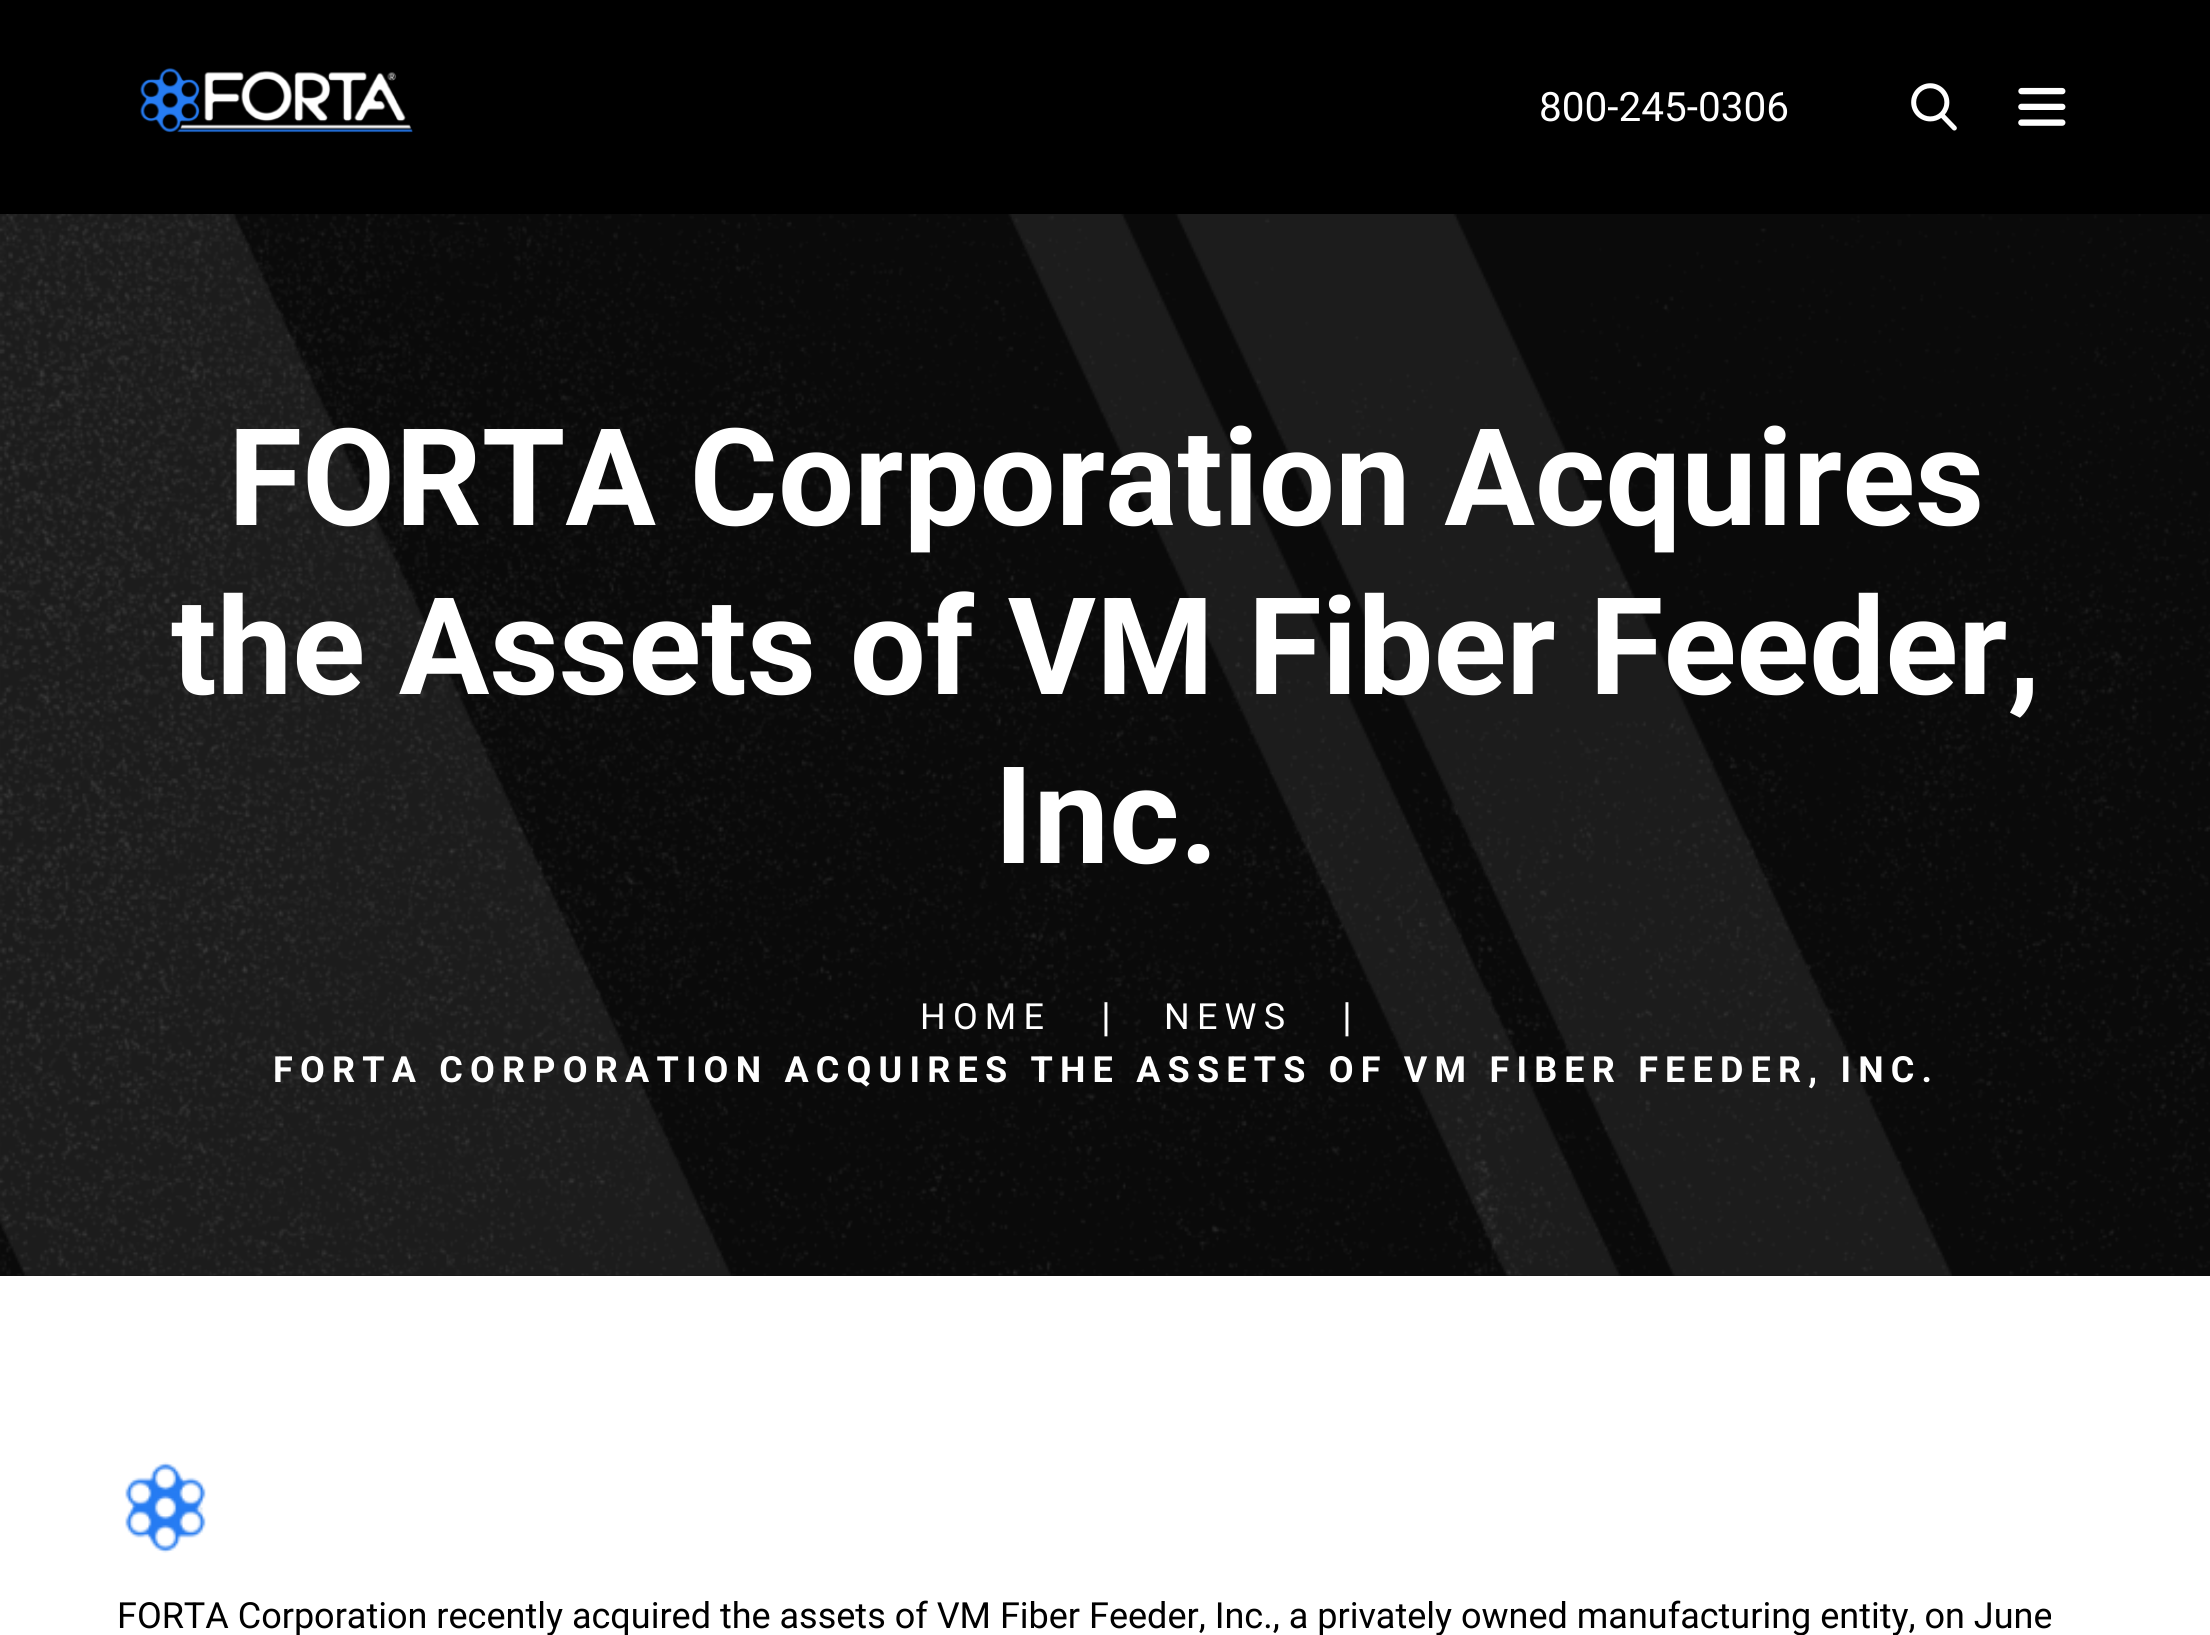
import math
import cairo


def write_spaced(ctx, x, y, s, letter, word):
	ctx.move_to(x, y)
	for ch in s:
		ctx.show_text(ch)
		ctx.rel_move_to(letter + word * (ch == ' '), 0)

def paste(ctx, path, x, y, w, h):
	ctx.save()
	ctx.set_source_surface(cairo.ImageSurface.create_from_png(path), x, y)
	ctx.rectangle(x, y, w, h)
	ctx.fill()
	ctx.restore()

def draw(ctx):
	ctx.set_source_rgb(1, 1, 1)
	ctx.paint()
	ctx.set_source_rgb(0, 0, 0)
	ctx.rectangle(0, 0, 2210, 214)
	ctx.fill()
	paste(ctx, 'media/1.png', 140, 68, 273, 65)
	ctx.select_font_face('Roboto')
	ctx.set_font_size(40.5)
	ctx.set_source_rgb(1, 1, 1)
	ctx.move_to(1539, 121)
	ctx.show_text('800-245-0306')
	paste(ctx, 'media/2.png', 1911, 83, 46, 48)
	paste(ctx, 'media/3.png', 2018, 87, 48, 39)
	ctx.set_source_rgb(0.047, 0.047, 0.047)
	ctx.rectangle(0, 214, 2210, 1062)
	ctx.fill()
	paste(ctx, 'media/4.png', 0, 214, 1952, 1062)
	paste(ctx, 'media/5.png', 0, 214, 2210, 1062)
	ctx.select_font_face('Roboto', cairo.FONT_SLANT_NORMAL, cairo.FONT_WEIGHT_BOLD)
	ctx.set_font_size(135)
	ctx.set_source_rgb(1, 1, 1)
	for x, y, s in [
		(228, 525, 'FORTA Corporation Acquires'),
		(171, 694, 'the Assets of VM Fiber Feeder,'),
		(994, 863, 'Inc.'),
	]:
		ctx.move_to(x, y)
		ctx.show_text(s)
	ctx.select_font_face('Roboto')
	ctx.set_font_size(36)
	write_spaced(ctx, 920, 1029, 'HOME', 7.2, 0)
	ctx.set_font_size(40.5)
	write_spaced(ctx, 1101, 1031, '|', 7.2, 0)
	ctx.set_font_size(36)
	write_spaced(ctx, 1164, 1029, 'NEWS', 7.2, 0)
	ctx.set_font_size(40.5)
	write_spaced(ctx, 1342, 1031, '|', 7.2, 0)
	ctx.select_font_face('Roboto', cairo.FONT_SLANT_NORMAL, cairo.FONT_WEIGHT_BOLD)
	ctx.set_font_size(36)
	write_spaced(ctx, 273, 1082, 'FORTA CORPORATION ACQUIRES THE ASSETS OF VM FIBER FEEDER, INC.', 7.2, 0)
	paste(ctx, 'media/6.png', 125, 1462, 81, 91)
	ctx.select_font_face('Roboto')
	ctx.set_source_rgb(0, 0, 0)
	ctx.move_to(117, 1628)
	ctx.show_text('FORTA Corporation recently acquired the assets of VM Fiber Feeder, Inc., a privately owned manufacturing entity, on June')


surface = cairo.ImageSurface(cairo.FORMAT_RGB24, 2210, 1635)
ctx = cairo.Context(surface)
options = cairo.FontOptions()
options.set_hint_metrics(cairo.HINT_METRICS_OFF)
options.set_hint_style(cairo.HINT_STYLE_NONE)
ctx.set_font_options(options)
ctx.set_miter_limit(4)
draw(ctx)
surface.write_to_png('image.png')
